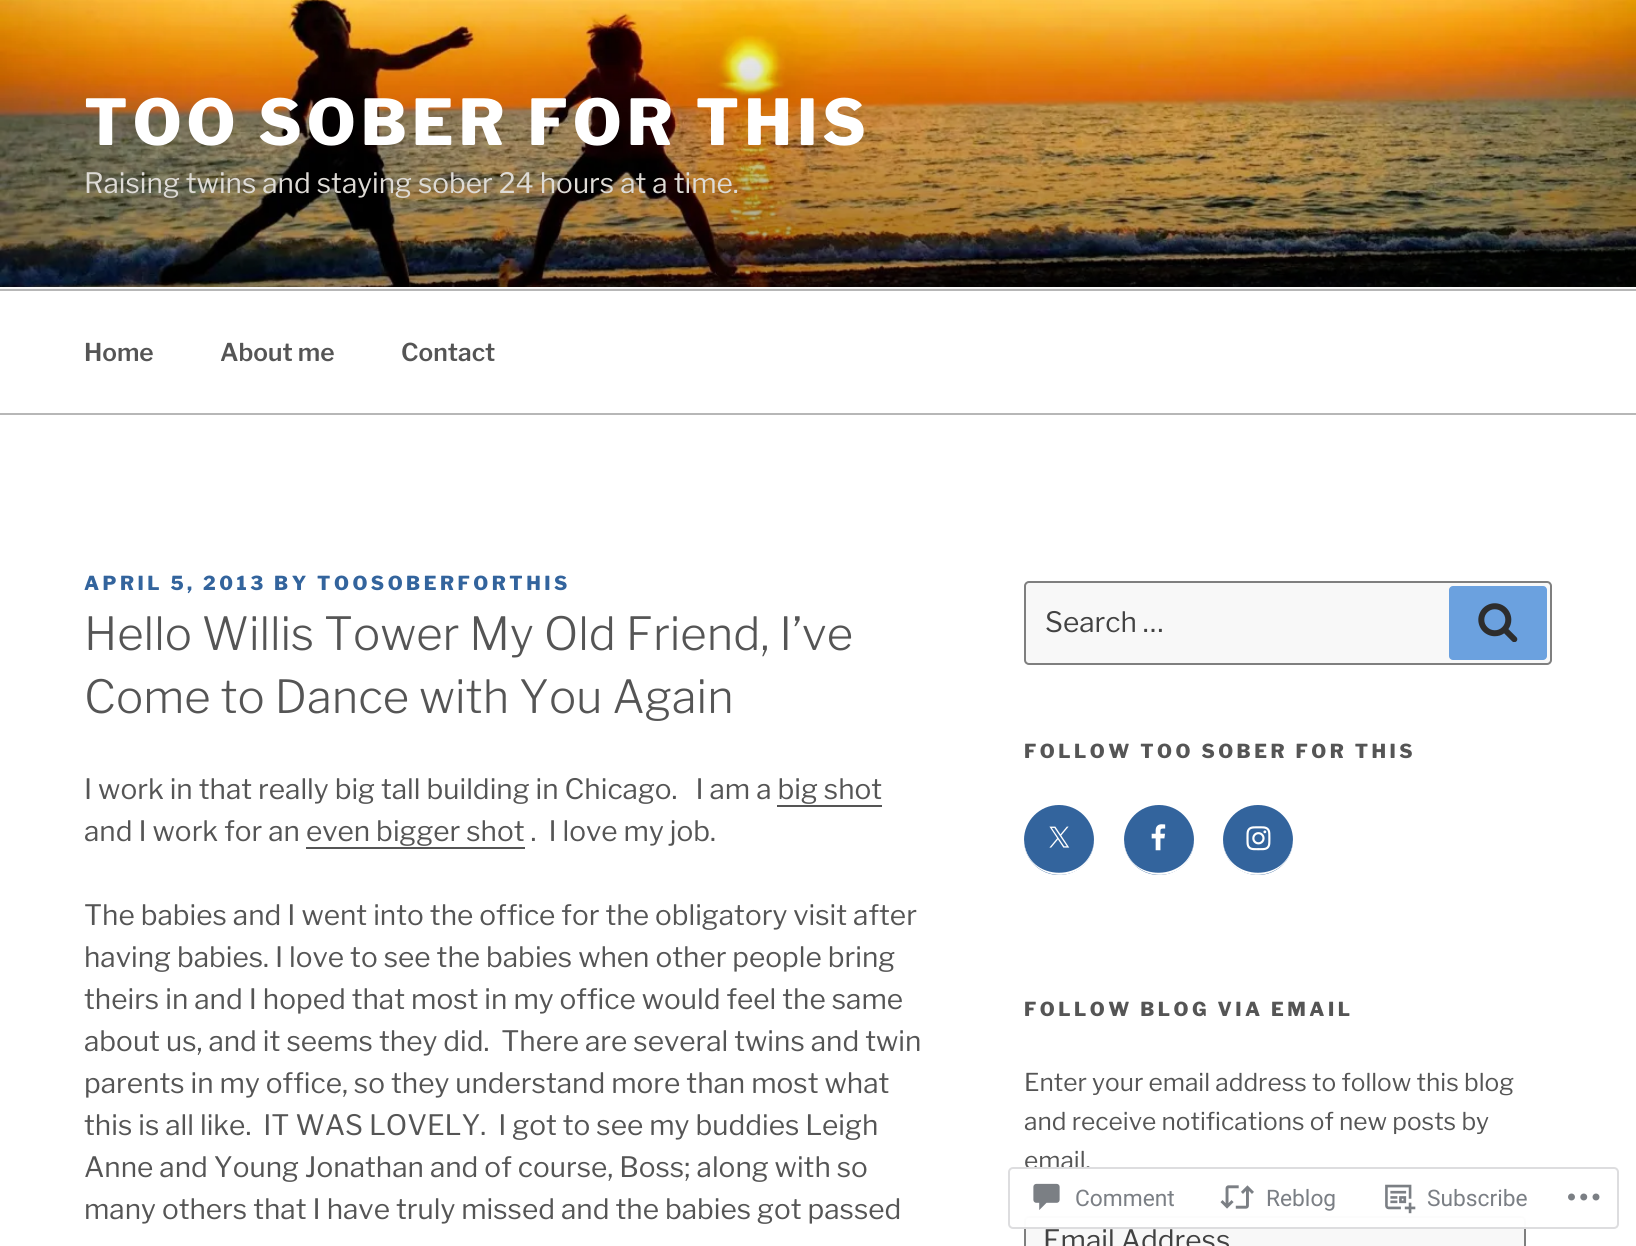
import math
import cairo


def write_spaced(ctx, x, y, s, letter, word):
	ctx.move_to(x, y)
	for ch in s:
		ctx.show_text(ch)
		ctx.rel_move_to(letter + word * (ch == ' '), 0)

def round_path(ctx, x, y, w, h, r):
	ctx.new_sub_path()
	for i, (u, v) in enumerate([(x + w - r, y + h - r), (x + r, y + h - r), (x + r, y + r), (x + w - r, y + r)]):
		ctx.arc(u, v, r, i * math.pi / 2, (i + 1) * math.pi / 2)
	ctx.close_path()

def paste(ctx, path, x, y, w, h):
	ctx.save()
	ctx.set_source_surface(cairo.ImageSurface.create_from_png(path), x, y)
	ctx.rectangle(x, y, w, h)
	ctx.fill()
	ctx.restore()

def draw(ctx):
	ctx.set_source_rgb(1, 1, 1)
	ctx.paint()
	ctx.set_source_rgb(0.976, 0.976, 0.976)
	ctx.rectangle(0, 287, 1636, 2)
	ctx.fill()
	paste(ctx, 'media/1.png', 0, 0, 1636, 287)
	ctx.select_font_face('Libre Franklin Thin')
	ctx.set_font_size(63)
	ctx.set_source_rgb(1, 1, 1)
	write_spaced(ctx, 84, 145, 'TOO SOBER FOR THIS', 5, 0)
	ctx.select_font_face('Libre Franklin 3 Thin')
	ctx.set_font_size(28)
	ctx.set_source_rgb(0.871, 0.859, 0.839)
	ctx.move_to(84, 193)
	ctx.show_text('Raising twins and staying sober 24 hours at a time.')
	ctx.set_source_rgb(0.718, 0.718, 0.718)
	ctx.rectangle(0, 289, 1636, 2)
	ctx.fill()
	ctx.rectangle(0, 413, 1636, 2)
	ctx.fill()
	ctx.select_font_face('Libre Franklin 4 Thin')
	ctx.set_font_size(24.5)
	ctx.set_source_rgb(0.333, 0.333, 0.333)
	for x, y, s in [
		(84, 361, 'Home'),
		(220, 361, 'About me'),
		(401, 361, 'Contact'),
	]:
		ctx.move_to(x, y)
		ctx.show_text(s)
	ctx.select_font_face('Libre Franklin Thin')
	ctx.set_font_size(19.25)
	ctx.set_source_rgb(0.2, 0.392, 0.616)
	write_spaced(ctx, 84, 590, 'APRIL 5, 2013 BY TOOSOBERFORTHIS', 3.5, 0)
	ctx.select_font_face('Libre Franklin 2 Thin')
	ctx.set_font_size(45.5)
	ctx.set_source_rgb(0.333, 0.333, 0.333)
	ctx.move_to(84, 650)
	ctx.show_text('Hello Willis Tower My Old Friend, I’ve')
	ctx.move_to(84, 713)
	ctx.show_text('Come to Dance with You Again')
	ctx.select_font_face('Libre Franklin 3 Thin')
	ctx.set_font_size(28)
	ctx.move_to(84, 799)
	ctx.show_text('I work in that really big tall building in Chicago.   I am a big shot')
	ctx.rectangle(777, 805, 105, 2)
	ctx.fill()
	ctx.move_to(84, 841)
	ctx.show_text('and I work for an even bigger shot .  I love my job.')
	ctx.rectangle(306, 847, 219, 2)
	ctx.fill()
	for x, y, s in [
		(84, 925, 'The babies and I went into the office for the obligatory visit after'),
		(84, 967, 'having babies. I love to see the babies when other people bring'),
		(84, 1009, 'theirs in and I hoped that most in my office would feel the same'),
		(84, 1051, 'about us, and it seems they did.  There are several twins and twin'),
		(84, 1093, 'parents in my office, so they understand more than most what'),
		(84, 1135, 'this is all like.  IT WAS LOVELY.  I got to see my buddies Leigh'),
		(84, 1177, 'Anne and Young Jonathan and of course, Boss; along with so'),
		(84, 1219, 'many others that I have truly missed and the babies got passed'),
	]:
		ctx.move_to(x, y)
		ctx.show_text(s)
	ctx.set_source_rgb(0.969, 0.969, 0.969)
	round_path(ctx, 1025, 582, 526, 82, 4)
	ctx.fill_preserve()
	ctx.set_source_rgb(0.498, 0.498, 0.498)
	ctx.stroke()
	ctx.set_source_rgb(0.259, 0.259, 0.259)
	ctx.move_to(1045, 632)
	ctx.show_text('Search …')
	ctx.set_source_rgb(0.42, 0.631, 0.875)
	round_path(ctx, 1449, 586, 98, 74, 4)
	ctx.fill()
	paste(ctx, 'media/2.png', 1478, 603, 40, 39)
	ctx.select_font_face('Libre Franklin Thin')
	ctx.set_font_size(19.25)
	ctx.set_source_rgb(0.333, 0.333, 0.333)
	write_spaced(ctx, 1024, 758, 'FOLLOW TOO SOBER FOR THIS', 3.5, 0)
	ctx.set_source_rgb(0.2, 0.392, 0.616)
	ctx.new_path()
	ctx.arc(1059, 840, 35, 0, 2 * math.pi)
	ctx.fill()
	ctx.set_source_rgb(1, 1, 1)
	ctx.new_path()
	ctx.move_to(1024, 839)
	ctx.curve_to(1023, 874, 1069, 888, 1088, 860)
	ctx.curve_to(1092, 854, 1094, 846, 1094, 839)
	ctx.curve_to(1093, 884, 1025, 884, 1024, 839)
	ctx.close_path()
	ctx.fill()
	paste(ctx, 'media/3.png', 1049, 826, 21, 22)
	ctx.set_source_rgb(0.2, 0.392, 0.616)
	ctx.arc(1159, 840, 35, 0, 2 * math.pi)
	ctx.fill()
	ctx.set_source_rgb(1, 1, 1)
	ctx.new_path()
	ctx.move_to(1124, 839)
	ctx.curve_to(1123, 874, 1169, 888, 1188, 860)
	ctx.curve_to(1192, 854, 1194, 846, 1194, 839)
	ctx.curve_to(1193, 883, 1125, 885, 1124, 839)
	ctx.close_path()
	ctx.fill()
	paste(ctx, 'media/4.png', 1151, 824, 15, 27)
	ctx.set_source_rgb(0.2, 0.392, 0.616)
	ctx.arc(1258, 840, 35, 0, 2 * math.pi)
	ctx.fill()
	ctx.set_source_rgb(1, 1, 1)
	ctx.new_path()
	ctx.move_to(1293, 839)
	ctx.curve_to(1292, 884, 1224, 884, 1223, 839)
	ctx.curve_to(1223, 846, 1225, 854, 1229, 860)
	ctx.curve_to(1248, 888, 1294, 874, 1293, 839)
	ctx.close_path()
	ctx.fill()
	paste(ctx, 'media/5.png', 1246, 826, 25, 25)
	ctx.set_source_rgb(0.333, 0.333, 0.333)
	write_spaced(ctx, 1024, 1016, 'FOLLOW BLOG VIA EMAIL', 3.5, 0)
	ctx.select_font_face('Libre Franklin 3 Thin')
	ctx.set_font_size(24.5)
	for x, y, s in [
		(1024, 1091, 'Enter your email address to follow this blog'),
		(1024, 1130, 'and receive notifications of new posts by'),
		(1024, 1169, 'email.'),
	]:
		ctx.move_to(x, y)
		ctx.show_text(s)
	ctx.set_source_rgb(0.969, 0.969, 0.969)
	round_path(ctx, 1025, 1217, 500, 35, 4)
	ctx.fill_preserve()
	ctx.set_source_rgb(0.498, 0.498, 0.498)
	ctx.stroke()
	ctx.set_font_size(28)
	ctx.set_source_rgb(0.259, 0.259, 0.259)
	ctx.move_to(1043, 1250)
	ctx.show_text('Email Address')
	ctx.set_source_rgba(1, 1, 1, 0.98)
	round_path(ctx, 1008, 1167, 611, 62, 5)
	ctx.fill()
	round_path(ctx, 1009, 1168, 609, 60, 4)
	ctx.set_source_rgba(0.863, 0.863, 0.871, 0.98)
	ctx.stroke()
	paste(ctx, 'media/6.png', 1033, 1183, 27, 27)
	ctx.select_font_face('Roboto')
	ctx.set_font_size(22.75)
	ctx.set_source_rgb(0.482, 0.498, 0.522)
	ctx.move_to(1075, 1206)
	ctx.show_text('Comment')
	paste(ctx, 'media/7.png', 1220, 1185, 34, 24)
	ctx.move_to(1266, 1206)
	ctx.show_text('Reblog')
	paste(ctx, 'media/8.png', 1385, 1184, 31, 30)
	ctx.move_to(1427, 1206)
	ctx.show_text('Subscribe')
	paste(ctx, 'media/9.png', 1568, 1193, 32, 8)


surface = cairo.ImageSurface(cairo.FORMAT_RGB24, 1636, 1246)
ctx = cairo.Context(surface)
options = cairo.FontOptions()
options.set_hint_metrics(cairo.HINT_METRICS_OFF)
options.set_hint_style(cairo.HINT_STYLE_NONE)
ctx.set_font_options(options)
ctx.set_miter_limit(4)
draw(ctx)
surface.write_to_png('image.png')
